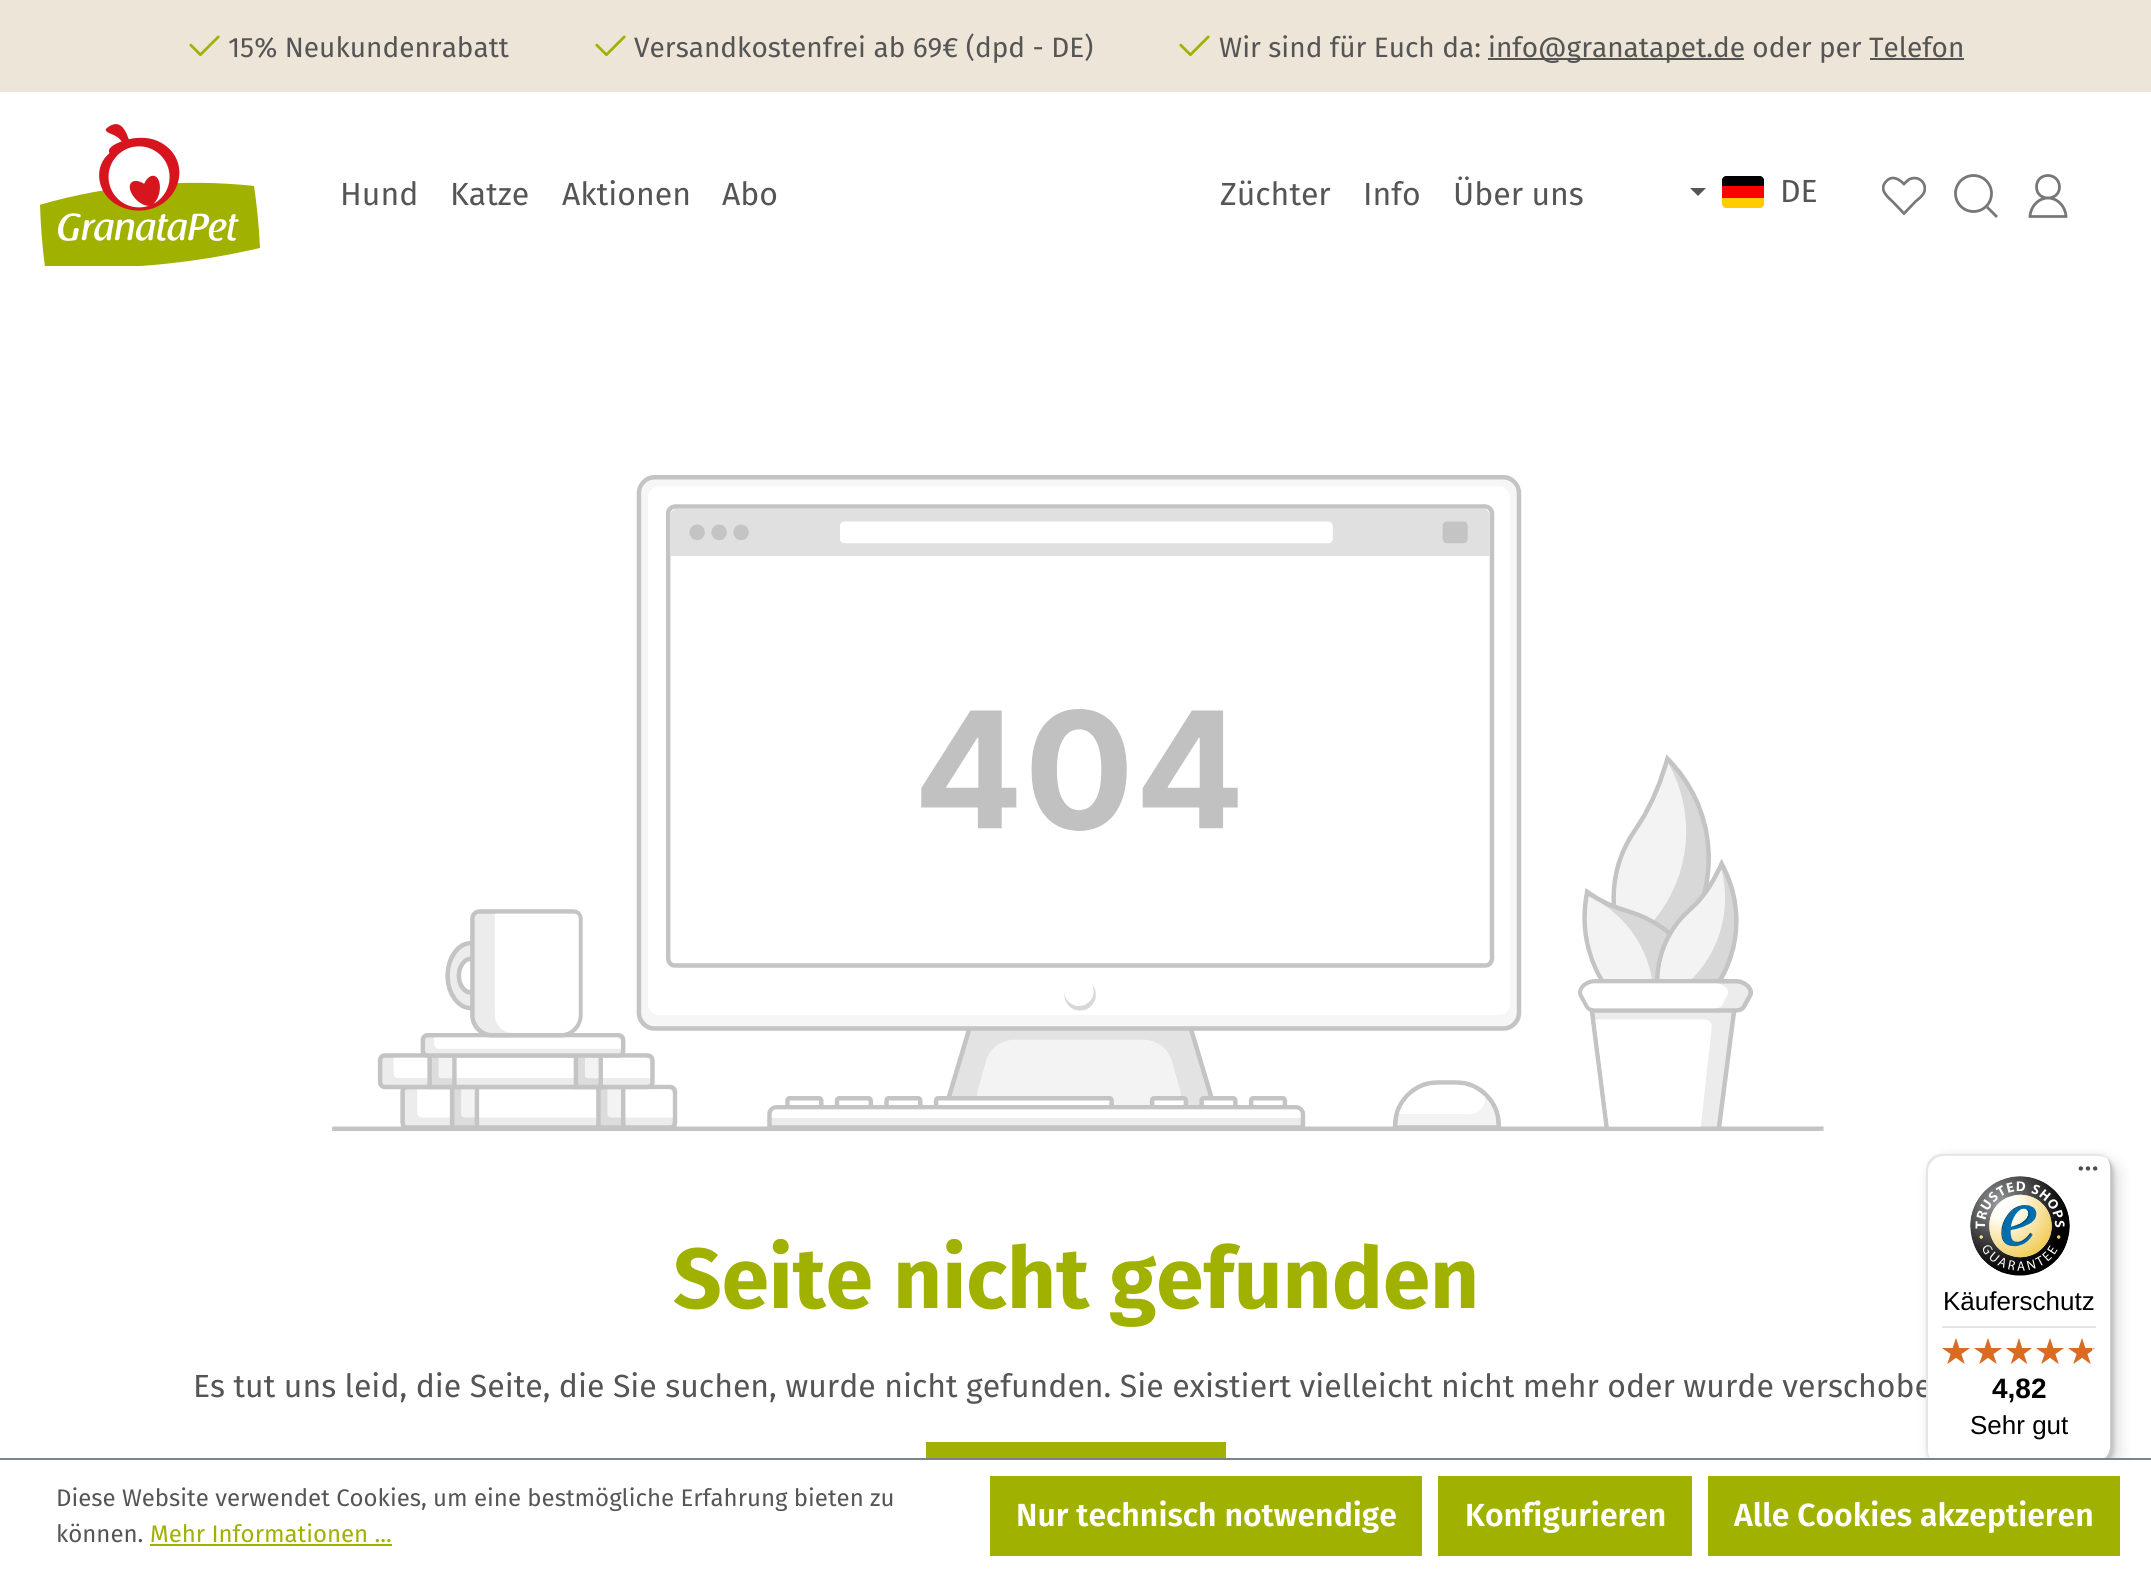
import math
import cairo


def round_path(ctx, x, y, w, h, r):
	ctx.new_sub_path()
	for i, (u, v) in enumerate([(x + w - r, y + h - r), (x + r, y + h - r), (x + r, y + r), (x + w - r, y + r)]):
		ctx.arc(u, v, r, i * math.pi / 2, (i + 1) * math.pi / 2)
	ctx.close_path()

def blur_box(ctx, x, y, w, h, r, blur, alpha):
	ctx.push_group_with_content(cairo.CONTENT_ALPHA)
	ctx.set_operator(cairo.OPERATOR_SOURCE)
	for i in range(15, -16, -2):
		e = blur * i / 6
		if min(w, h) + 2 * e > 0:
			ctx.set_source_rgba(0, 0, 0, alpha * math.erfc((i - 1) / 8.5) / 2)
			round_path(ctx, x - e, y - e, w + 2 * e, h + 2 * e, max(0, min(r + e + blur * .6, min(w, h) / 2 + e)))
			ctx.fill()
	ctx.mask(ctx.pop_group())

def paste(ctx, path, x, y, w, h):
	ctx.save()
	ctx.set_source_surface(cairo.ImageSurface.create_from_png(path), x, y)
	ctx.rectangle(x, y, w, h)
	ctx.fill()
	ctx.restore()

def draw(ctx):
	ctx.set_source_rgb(1, 1, 1)
	ctx.paint()
	ctx.set_source_rgb(0.925, 0.898, 0.847)
	ctx.rectangle(0, 0, 2151, 92)
	ctx.fill()
	paste(ctx, 'media/1.png', 189, 35, 31, 22)
	ctx.select_font_face('Fira Sans')
	ctx.set_font_size(28)
	ctx.set_source_rgb(0.333, 0.333, 0.333)
	ctx.move_to(228, 57)
	ctx.show_text('15% Neukundenrabatt')
	paste(ctx, 'media/1.png', 595, 35, 31, 22)
	ctx.move_to(634, 57)
	ctx.show_text('Versandkostenfrei ab 69€ (dpd - DE)')
	paste(ctx, 'media/1.png', 1179, 35, 31, 22)
	ctx.move_to(1219, 57)
	ctx.show_text('Wir sind für Euch da:')
	ctx.rectangle(1488, 58, 256, 2)
	ctx.fill()
	ctx.move_to(1488, 57)
	ctx.show_text('info@granatapet.de oder per Telefon')
	ctx.rectangle(1870, 58, 94, 2)
	ctx.fill()
	paste(ctx, 'media/2.png', 40, 124, 220, 142)
	ctx.set_font_size(32)
	for x, y, s in [
		(340, 205, 'Hund'),
		(450, 205, 'Katze'),
		(562, 205, 'Aktionen'),
		(722, 205, 'Abo'),
		(1220, 205, 'Züchter'),
		(1363, 205, 'Info'),
		(1453, 205, 'Über uns'),
	]:
		ctx.move_to(x, y)
		ctx.show_text(s)
	ctx.new_path()
	ctx.move_to(1690, 188)
	ctx.line_to(1706, 188)
	ctx.line_to(1698, 196)
	ctx.close_path()
	ctx.fill()
	ctx.set_source_rgb(0, 0, 0)
	ctx.new_path()
	ctx.move_to(1726, 176)
	ctx.line_to(1760, 176)
	ctx.curve_to(1762, 176, 1764, 178, 1764, 180)
	ctx.line_to(1764, 186)
	ctx.line_to(1722, 186)
	ctx.line_to(1722, 180)
	ctx.curve_to(1722, 178, 1724, 176, 1726, 176)
	ctx.close_path()
	ctx.fill()
	ctx.set_source_rgb(1, 0, 0)
	ctx.rectangle(1722, 186, 42, 12)
	ctx.fill()
	ctx.set_source_rgb(1, 0.8, 0)
	ctx.new_path()
	ctx.move_to(1722, 198)
	ctx.line_to(1764, 198)
	ctx.line_to(1764, 204)
	ctx.curve_to(1764, 206, 1762, 208, 1760, 208)
	ctx.line_to(1726, 208)
	ctx.curve_to(1724, 208, 1722, 206, 1722, 204)
	ctx.close_path()
	ctx.fill()
	ctx.set_source_rgb(0.333, 0.333, 0.333)
	ctx.move_to(1780, 202)
	ctx.show_text('DE')
	ctx.save()
	ctx.rectangle(1882, 174, 44, 44)
	ctx.clip()
	ctx.new_path()
	ctx.move_to(1886.5, 181)
	ctx.curve_to(1892.5, 175, 1899, 179, 1904, 184)
	ctx.curve_to(1906.5, 181.5, 1908.5, 179, 1911.5, 178.5)
	ctx.curve_to(1920, 176, 1927.5, 184.5, 1924, 192.5)
	ctx.curve_to(1922.5, 196, 1918.5, 199, 1915.5, 201.5)
	ctx.line_to(1904, 213.5)
	ctx.line_to(1892.5, 201.5)
	ctx.curve_to(1886.5, 196, 1878.5, 189, 1886.5, 181)
	ctx.close_path()
	ctx.set_source_rgb(0.467, 0.467, 0.467)
	ctx.set_line_width(2.7)
	ctx.stroke()
	ctx.restore()
	ctx.arc(1973.5, 193.5, 18, 0, 2 * math.pi)
	ctx.set_source_rgb(0.467, 0.467, 0.467)
	ctx.set_line_width(2.8)
	ctx.stroke()
	ctx.new_path()
	ctx.move_to(1987, 207)
	ctx.line_to(1997, 217)
	ctx.stroke()
	ctx.new_path()
	ctx.move_to(2036.5, 187)
	ctx.curve_to(2036.5, 172, 2058.5, 171.5, 2059.5, 186.5)
	ctx.curve_to(2060, 201.5, 2036.5, 202, 2036.5, 187)
	ctx.close_path()
	ctx.move_to(2048, 198)
	ctx.curve_to(2058, 198, 2065.5, 207, 2066, 216.5)
	ctx.line_to(2030, 216.5)
	ctx.curve_to(2030.5, 207, 2038, 198, 2048, 198)
	ctx.close_path()
	ctx.stroke()
	paste(ctx, 'media/3.png', 332, 475, 1492, 656)
	ctx.select_font_face('Fira Sans', cairo.FONT_SLANT_NORMAL, cairo.FONT_WEIGHT_BOLD)
	ctx.set_font_size(85.25)
	ctx.set_source_rgb(0.627, 0.694, 0)
	ctx.move_to(673, 1308)
	ctx.show_text('Seite nicht gefunden')
	ctx.select_font_face('Fira Sans')
	ctx.set_font_size(32)
	ctx.set_source_rgb(0.333, 0.333, 0.333)
	ctx.move_to(193, 1397)
	ctx.show_text('Es tut uns leid, die Seite, die Sie suchen, wurde nicht gefunden. Sie existiert vielleicht nicht mehr oder wurde verschobe')
	ctx.set_source_rgb(0.627, 0.694, 0)
	ctx.rectangle(926, 1442, 300, 16)
	ctx.fill()
	ctx.set_source_rgb(0, 0, 0)
	blur_box(ctx, 1932, 1160, 186, 310, 16, 8, 0.15)
	blur_box(ctx, 1928, 1156, 186, 310, 16, 2, 0.15)
	ctx.set_source_rgb(1, 1, 1)
	round_path(ctx, 1926, 1154, 186, 310, 16)
	ctx.fill()
	ctx.set_source_rgba(0, 0, 0, 0.1)
	ctx.new_path()
	ctx.move_to(1944, 1156)
	ctx.line_to(2098, 1156)
	ctx.curve_to(2102, 1156, 2105, 1157, 2108, 1159)
	ctx.curve_to(2105, 1156, 2101, 1154, 2096, 1154)
	ctx.line_to(1942, 1154)
	ctx.curve_to(1933, 1154, 1926, 1161, 1926, 1170)
	ctx.line_to(1926, 1448)
	ctx.curve_to(1926, 1453, 1928, 1457, 1931, 1460)
	ctx.curve_to(1929, 1457, 1928, 1454, 1928, 1450)
	ctx.line_to(1928, 1172)
	ctx.curve_to(1928, 1163, 1935, 1156, 1944, 1156)
	ctx.close_path()
	ctx.fill()
	ctx.set_source_rgba(0, 0, 0, 0.2)
	ctx.new_path()
	ctx.move_to(1930, 1459)
	ctx.curve_to(1933, 1462, 1937, 1464, 1942, 1464)
	ctx.line_to(2096, 1464)
	ctx.curve_to(2105, 1464, 2112, 1457, 2112, 1448)
	ctx.line_to(2112, 1170)
	ctx.curve_to(2112, 1165, 2110, 1161, 2107, 1158)
	ctx.curve_to(2109, 1161, 2110, 1164, 2110, 1168)
	ctx.line_to(2110, 1446)
	ctx.curve_to(2110, 1455, 2103, 1462, 2094, 1462)
	ctx.line_to(1940, 1462)
	ctx.curve_to(1936, 1462, 1933, 1461, 1930, 1459)
	ctx.close_path()
	ctx.fill()
	ctx.set_source_rgba(0.196, 0.196, 0.196, 0.2)
	ctx.new_path()
	ctx.move_to(1931, 1459)
	ctx.curve_to(1934, 1462, 1938, 1464, 1942, 1464)
	ctx.line_to(2096, 1464)
	ctx.curve_to(2105, 1464, 2112, 1457, 2112, 1448)
	ctx.line_to(2112, 1170)
	ctx.curve_to(2112, 1166, 2110, 1162, 2107, 1159)
	ctx.curve_to(2110, 1162, 2111, 1165, 2111, 1169)
	ctx.line_to(2111, 1447)
	ctx.curve_to(2111, 1456, 2104, 1463, 2095, 1463)
	ctx.line_to(1941, 1463)
	ctx.curve_to(1937, 1463, 1934, 1462, 1931, 1459)
	ctx.close_path()
	ctx.fill()
	ctx.set_source_rgba(1, 1, 1, 0.3)
	ctx.new_path()
	ctx.move_to(1931, 1459)
	ctx.curve_to(1934, 1462, 1938, 1464, 1942, 1464)
	ctx.line_to(2096, 1464)
	ctx.curve_to(2105, 1464, 2112, 1457, 2112, 1448)
	ctx.line_to(2112, 1170)
	ctx.curve_to(2112, 1166, 2110, 1162, 2107, 1159)
	ctx.curve_to(2110, 1162, 2111, 1165, 2111, 1169)
	ctx.line_to(2111, 1447)
	ctx.curve_to(2111, 1456, 2104, 1463, 2095, 1463)
	ctx.line_to(1941, 1463)
	ctx.curve_to(1937, 1463, 1934, 1462, 1931, 1459)
	ctx.close_path()
	ctx.fill()
	paste(ctx, 'media/4.png', 2078, 1166, 20, 5)
	paste(ctx, 'media/5.png', 1970, 1176, 100, 100)
	ctx.select_font_face('Liberation Sans')
	ctx.set_font_size(26)
	ctx.set_source_rgb(0, 0, 0)
	ctx.move_to(1943, 1310)
	ctx.show_text('Käuferschutz')
	ctx.set_source_rgb(0.898, 0.898, 0.898)
	ctx.rectangle(1942, 1326, 154, 2)
	ctx.fill()
	paste(ctx, 'media/6.png', 1942, 1338, 28, 26)
	paste(ctx, 'media/6.png', 1974, 1338, 28, 26)
	paste(ctx, 'media/7.png', 2006, 1338, 26, 26)
	paste(ctx, 'media/6.png', 2036, 1338, 28, 26)
	paste(ctx, 'media/6.png', 2068, 1338, 28, 26)
	paste(ctx, 'media/8.png', 1942, 1338, 28, 26)
	paste(ctx, 'media/8.png', 1974, 1338, 28, 26)
	paste(ctx, 'media/9.png', 2006, 1338, 26, 26)
	paste(ctx, 'media/8.png', 2036, 1338, 28, 26)
	paste(ctx, 'media/10.png', 2068, 1338, 24, 26)
	ctx.select_font_face('Liberation Sans', cairo.FONT_SLANT_NORMAL, cairo.FONT_WEIGHT_BOLD)
	ctx.set_font_size(28)
	ctx.set_source_rgb(0, 0, 0)
	ctx.move_to(1992, 1398)
	ctx.show_text('4,82')
	ctx.select_font_face('Liberation Sans')
	ctx.set_font_size(26)
	ctx.move_to(1970, 1434)
	ctx.show_text('Sehr gut')
	ctx.set_source_rgb(1, 1, 1)
	ctx.rectangle(1922, 1460, 206, 22)
	ctx.fill()
	ctx.set_source_rgb(0.475, 0.518, 0.565)
	ctx.rectangle(0, 1458, 2151, 2)
	ctx.fill()
	ctx.select_font_face('Fira Sans')
	ctx.set_font_size(24)
	ctx.set_source_rgb(0.333, 0.333, 0.333)
	ctx.move_to(56, 1506)
	ctx.show_text('Diese Website verwendet Cookies, um eine bestmögliche Erfahrung bieten zu')
	ctx.move_to(56, 1542)
	ctx.show_text('können.')
	ctx.set_source_rgb(0.627, 0.694, 0)
	ctx.move_to(150, 1542)
	ctx.show_text('Mehr Informationen ...')
	ctx.rectangle(150, 1544, 242, 2)
	ctx.fill()
	ctx.rectangle(990, 1476, 432, 80)
	ctx.fill()
	ctx.select_font_face('Fira Sans SemiBold')
	ctx.set_font_size(32)
	ctx.set_source_rgb(1, 1, 1)
	ctx.move_to(1016, 1526)
	ctx.show_text('Nur technisch notwendige')
	ctx.set_source_rgb(0.627, 0.694, 0)
	ctx.rectangle(1438, 1476, 254, 80)
	ctx.fill()
	ctx.set_source_rgb(1, 1, 1)
	ctx.move_to(1465, 1526)
	ctx.show_text('Konfigurieren')
	ctx.set_source_rgb(0.627, 0.694, 0)
	ctx.rectangle(1708, 1476, 412, 80)
	ctx.fill()
	ctx.set_source_rgb(1, 1, 1)
	ctx.move_to(1734, 1526)
	ctx.show_text('Alle Cookies akzeptieren')


surface = cairo.ImageSurface(cairo.FORMAT_RGB24, 2151, 1572)
ctx = cairo.Context(surface)
options = cairo.FontOptions()
options.set_hint_metrics(cairo.HINT_METRICS_OFF)
options.set_hint_style(cairo.HINT_STYLE_NONE)
ctx.set_font_options(options)
ctx.set_miter_limit(4)
draw(ctx)
surface.write_to_png('image.png')
